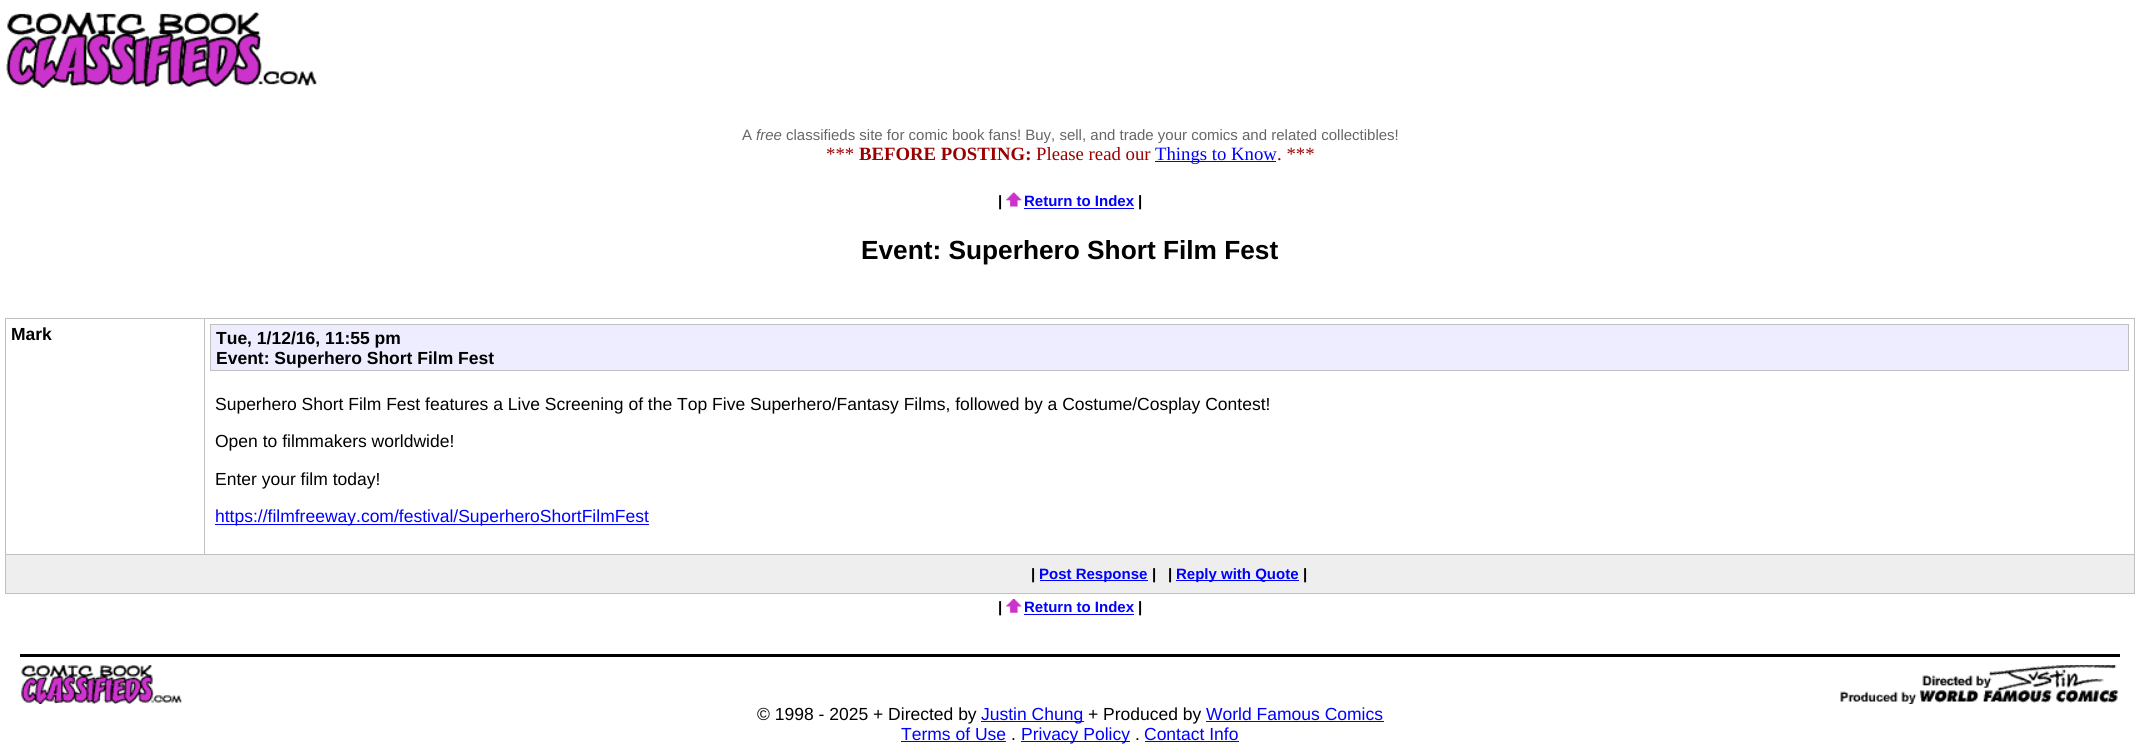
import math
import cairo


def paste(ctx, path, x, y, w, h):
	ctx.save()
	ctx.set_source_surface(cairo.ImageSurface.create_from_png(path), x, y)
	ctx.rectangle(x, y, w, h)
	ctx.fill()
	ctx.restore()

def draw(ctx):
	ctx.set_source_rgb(1, 1, 1)
	ctx.paint()
	paste(ctx, 'media/1.png', 6, 12, 311, 76)
	ctx.select_font_face('Liberation Sans')
	ctx.set_font_size(15)
	ctx.set_source_rgb(0.4, 0.4, 0.4)
	ctx.move_to(742, 140)
	ctx.show_text('A')
	ctx.select_font_face('Liberation Sans', cairo.FONT_SLANT_ITALIC)
	ctx.move_to(756, 140)
	ctx.show_text('free')
	ctx.select_font_face('Liberation Sans')
	ctx.move_to(786, 140)
	ctx.show_text('classifieds site for comic book fans! Buy, sell, and trade your comics and related collectibles!')
	ctx.select_font_face('Liberation Serif')
	ctx.set_font_size(18.75)
	ctx.set_source_rgb(0.6, 0, 0)
	ctx.move_to(826, 160)
	ctx.show_text('***')
	ctx.select_font_face('Liberation Serif', cairo.FONT_SLANT_NORMAL, cairo.FONT_WEIGHT_BOLD)
	ctx.move_to(859, 160)
	ctx.show_text('BEFORE POSTING:')
	ctx.select_font_face('Liberation Serif')
	ctx.move_to(1036, 160)
	ctx.show_text('Please read our')
	ctx.set_source_rgb(0, 0, 1)
	ctx.rectangle(1155, 161, 121, 1)
	ctx.fill()
	ctx.move_to(1155, 160)
	ctx.show_text('Things to Know')
	ctx.set_source_rgb(0.6, 0, 0)
	ctx.move_to(1277, 160)
	ctx.show_text('. ***')
	ctx.select_font_face('Liberation Sans', cairo.FONT_SLANT_NORMAL, cairo.FONT_WEIGHT_BOLD)
	ctx.set_font_size(15)
	ctx.set_source_rgb(0, 0, 0)
	ctx.move_to(998, 206)
	ctx.show_text('|')
	paste(ctx, 'media/2.png', 1006, 192, 16, 15)
	ctx.set_source_rgb(0, 0, 1)
	ctx.move_to(1024, 206)
	ctx.show_text('Return to Index')
	ctx.rectangle(1024, 208, 110, 1)
	ctx.fill()
	ctx.set_source_rgb(0, 0, 0)
	ctx.move_to(1138, 206)
	ctx.show_text('|')
	ctx.set_font_size(26.25)
	ctx.move_to(861, 259)
	ctx.show_text('Event: Superhero Short Film Fest')
	ctx.set_source_rgb(0.753, 0.753, 0.753)
	ctx.rectangle(5, 318, 2130, 1)
	ctx.rectangle(2134, 318, 1, 276)
	ctx.rectangle(5, 593, 2130, 1)
	ctx.rectangle(5, 318, 1, 276)
	ctx.rectangle(5, 554, 2130, 1)
	ctx.rectangle(204, 318, 1, 237)
	ctx.fill()
	ctx.set_font_size(17.5)
	ctx.set_source_rgb(0, 0, 0)
	ctx.move_to(11, 340)
	ctx.show_text('Mark')
	ctx.set_source_rgb(0.929, 0.929, 1)
	ctx.rectangle(210.5, 324.5, 1918, 46)
	ctx.fill_preserve()
	ctx.set_source_rgb(0.753, 0.753, 0.753)
	ctx.set_line_width(1)
	ctx.stroke()
	ctx.set_source_rgb(0, 0, 0)
	ctx.move_to(216, 344)
	ctx.show_text('Tue, 1/12/16, 11:55 pm')
	ctx.move_to(216, 364)
	ctx.show_text('Event: Superhero Short Film Fest')
	ctx.select_font_face('Liberation Sans')
	for x, y, s in [
		(215, 410, 'Superhero Short Film Fest features a Live Screening of the Top Five Superhero/Fantasy Films, followed by a Costume/Cosplay Contest!'),
		(215, 447, 'Open to filmmakers worldwide!'),
		(215, 485, 'Enter your film today!'),
	]:
		ctx.move_to(x, y)
		ctx.show_text(s)
	ctx.set_source_rgb(0, 0, 1)
	ctx.rectangle(215, 524, 434, 1)
	ctx.fill()
	ctx.move_to(215, 522)
	ctx.show_text('https://filmfreeway.com/festival/SuperheroShortFilmFest')
	ctx.set_source_rgb(0.933, 0.933, 0.933)
	ctx.rectangle(6, 555, 2128, 38)
	ctx.fill()
	ctx.select_font_face('Liberation Sans', cairo.FONT_SLANT_NORMAL, cairo.FONT_WEIGHT_BOLD)
	ctx.set_font_size(15)
	ctx.set_source_rgb(0, 0, 0)
	ctx.move_to(1031, 579)
	ctx.show_text('|')
	ctx.set_source_rgb(0, 0, 1)
	ctx.rectangle(1040, 580, 108, 1)
	ctx.fill()
	ctx.move_to(1039, 579)
	ctx.show_text('Post Response')
	ctx.set_source_rgb(0, 0, 0)
	ctx.move_to(1152, 579)
	ctx.show_text('|')
	ctx.move_to(1168, 579)
	ctx.show_text('|')
	ctx.set_source_rgb(0, 0, 1)
	ctx.rectangle(1176, 580, 123, 1)
	ctx.fill()
	ctx.move_to(1176, 579)
	ctx.show_text('Reply with Quote')
	ctx.set_source_rgb(0, 0, 0)
	ctx.move_to(1303, 579)
	ctx.show_text('|')
	ctx.move_to(998, 612)
	ctx.show_text('|')
	paste(ctx, 'media/3.png', 1006, 599, 16, 14)
	ctx.set_source_rgb(0, 0, 1)
	ctx.move_to(1024, 612)
	ctx.show_text('Return to Index')
	ctx.rectangle(1024, 614, 110, 1)
	ctx.fill()
	ctx.set_source_rgb(0, 0, 0)
	ctx.move_to(1138, 612)
	ctx.show_text('|')
	ctx.rectangle(20, 654, 2100, 3)
	ctx.fill()
	paste(ctx, 'media/4.png', 21, 665, 161, 39)
	paste(ctx, 'media/5.png', 1922, 665, 195, 26)
	paste(ctx, 'media/6.png', 1840, 690, 279, 14)
	ctx.select_font_face('Liberation Sans')
	ctx.set_font_size(17.5)
	ctx.move_to(757, 720)
	ctx.show_text('© 1998 - 2025 + Directed by')
	ctx.set_source_rgb(0, 0, 1)
	ctx.rectangle(981, 721, 103, 1)
	ctx.fill()
	ctx.move_to(981, 720)
	ctx.show_text('Justin Chung')
	ctx.set_source_rgb(0, 0, 0)
	ctx.move_to(1088, 720)
	ctx.show_text('+ Produced by')
	ctx.set_source_rgb(0, 0, 1)
	ctx.move_to(1206, 720)
	ctx.show_text('World Famous Comics')
	ctx.rectangle(1206, 721, 178, 1)
	ctx.fill()
	ctx.move_to(901, 740)
	ctx.show_text('Terms of Use')
	ctx.rectangle(901, 741, 105, 1)
	ctx.fill()
	ctx.set_source_rgb(0, 0, 0)
	ctx.move_to(1011, 740)
	ctx.show_text('.')
	ctx.set_source_rgb(0, 0, 1)
	ctx.rectangle(1021, 741, 109, 1)
	ctx.fill()
	ctx.move_to(1021, 740)
	ctx.show_text('Privacy Policy')
	ctx.set_source_rgb(0, 0, 0)
	ctx.move_to(1135, 740)
	ctx.show_text('.')
	ctx.set_source_rgb(0, 0, 1)
	ctx.move_to(1144, 740)
	ctx.show_text('Contact Info')
	ctx.rectangle(1145, 741, 94, 1)
	ctx.fill()


surface = cairo.ImageSurface(cairo.FORMAT_RGB24, 2140, 744)
ctx = cairo.Context(surface)
options = cairo.FontOptions()
options.set_hint_metrics(cairo.HINT_METRICS_OFF)
options.set_hint_style(cairo.HINT_STYLE_NONE)
ctx.set_font_options(options)
ctx.set_miter_limit(4)
draw(ctx)
surface.write_to_png('image.png')
